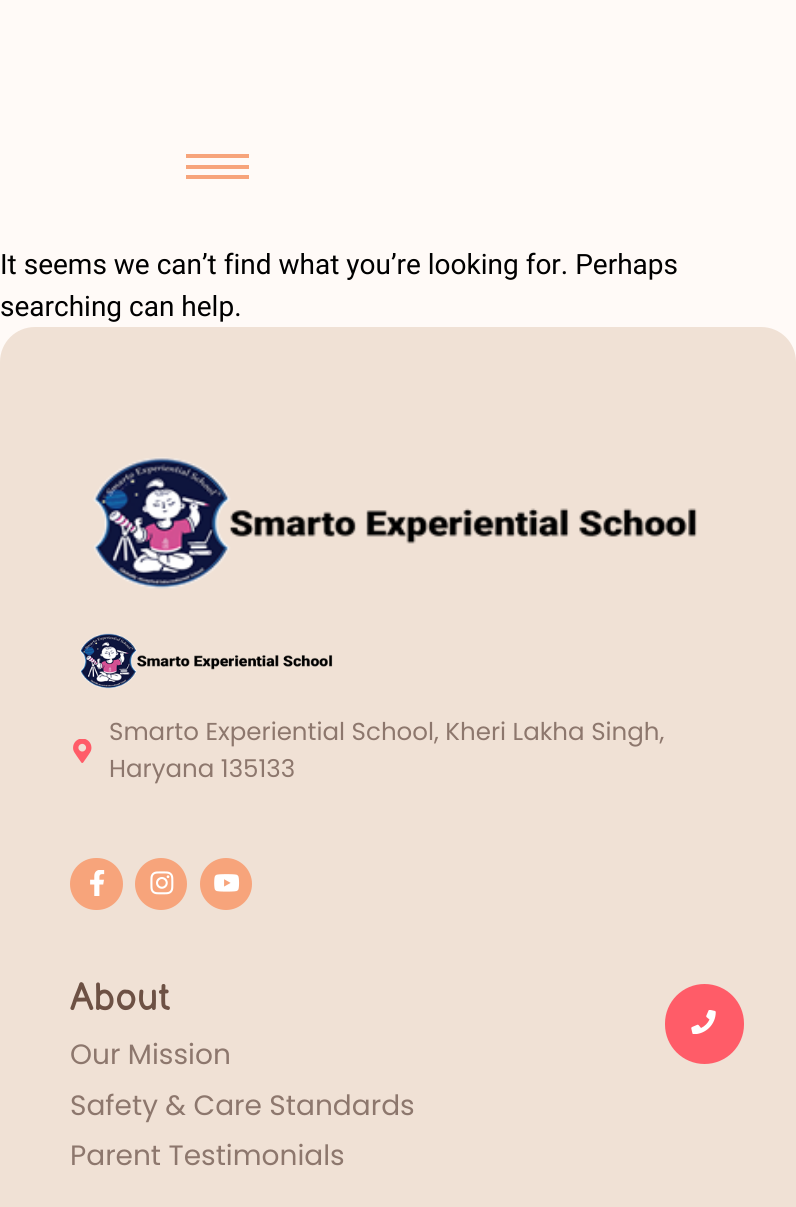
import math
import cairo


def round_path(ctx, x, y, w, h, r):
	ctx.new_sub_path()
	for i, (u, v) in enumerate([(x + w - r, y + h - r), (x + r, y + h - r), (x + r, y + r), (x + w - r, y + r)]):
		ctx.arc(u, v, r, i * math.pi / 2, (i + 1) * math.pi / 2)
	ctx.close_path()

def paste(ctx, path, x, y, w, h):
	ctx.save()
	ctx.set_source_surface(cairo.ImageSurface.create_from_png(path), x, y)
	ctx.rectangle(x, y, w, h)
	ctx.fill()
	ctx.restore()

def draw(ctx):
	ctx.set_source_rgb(1, 0.98, 0.965)
	ctx.paint()
	ctx.set_source_rgb(0.965, 0.643, 0.482)
	ctx.rectangle(186, 154, 63, 4)
	ctx.rectangle(186, 165, 63, 4)
	ctx.rectangle(186, 175, 63, 4)
	ctx.fill()
	ctx.select_font_face('Roboto')
	ctx.set_font_size(28)
	ctx.set_source_rgb(0, 0, 0)
	ctx.move_to(0, 274)
	ctx.show_text('It seems we can’t find what you’re looking for. Perhaps')
	ctx.move_to(0, 316)
	ctx.show_text('searching can help.')
	ctx.set_source_rgb(0.941, 0.882, 0.835)
	ctx.new_path()
	ctx.move_to(35, 327)
	ctx.line_to(761, 327)
	ctx.curve_to(780.5, 327, 796, 342.5, 796, 362)
	ctx.line_to(796, 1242)
	ctx.line_to(0, 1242)
	ctx.line_to(0, 362)
	ctx.curve_to(0, 342.5, 15.5, 327, 35, 327)
	ctx.close_path()
	ctx.fill()
	paste(ctx, 'media/1.png', 92, 457, 605, 132)
	paste(ctx, 'media/2.png', 80, 633, 253, 56)
	paste(ctx, 'media/3.png', 73, 739, 19, 24)
	ctx.select_font_face('Poppins')
	ctx.set_font_size(24.5)
	ctx.set_source_rgb(0.553, 0.467, 0.427)
	ctx.move_to(109, 740)
	ctx.show_text('Smarto Experiential School, Kheri Lakha Singh,')
	ctx.move_to(109, 777)
	ctx.show_text('Haryana 135133')
	ctx.set_source_rgb(0.965, 0.643, 0.482)
	round_path(ctx, 70, 858, 53, 52, 26)
	ctx.fill()
	paste(ctx, 'media/4.png', 90, 870, 15, 26)
	ctx.arc(161, 884, 26, 0, 2 * math.pi)
	ctx.fill()
	paste(ctx, 'media/5.png', 150, 871, 24, 24)
	ctx.arc(226, 884, 26, 0, 2 * math.pi)
	ctx.fill()
	paste(ctx, 'media/6.png', 214, 874, 26, 18)
	ctx.select_font_face('Balsamiq Sans')
	ctx.set_font_size(38.5)
	ctx.set_source_rgb(0.427, 0.318, 0.267)
	ctx.move_to(70, 1010)
	ctx.show_text('About')
	ctx.select_font_face('Poppins')
	ctx.set_font_size(28)
	ctx.set_source_rgb(0.553, 0.467, 0.427)
	for x, y, s in [
		(70, 1064, 'Our Mission'),
		(70, 1115, 'Safety & Care Standards'),
		(70, 1165, 'Parent Testimonials'),
	]:
		ctx.move_to(x, y)
		ctx.show_text(s)
	ctx.set_source_rgb(1, 0.361, 0.408)
	round_path(ctx, 665, 984, 79, 80, 39.5)
	ctx.fill()
	paste(ctx, 'media/7.png', 691, 1010, 25, 24)


surface = cairo.ImageSurface(cairo.FORMAT_RGB24, 796, 1207)
ctx = cairo.Context(surface)
options = cairo.FontOptions()
options.set_hint_metrics(cairo.HINT_METRICS_OFF)
options.set_hint_style(cairo.HINT_STYLE_NONE)
ctx.set_font_options(options)
ctx.set_miter_limit(4)
draw(ctx)
surface.write_to_png('image.png')
